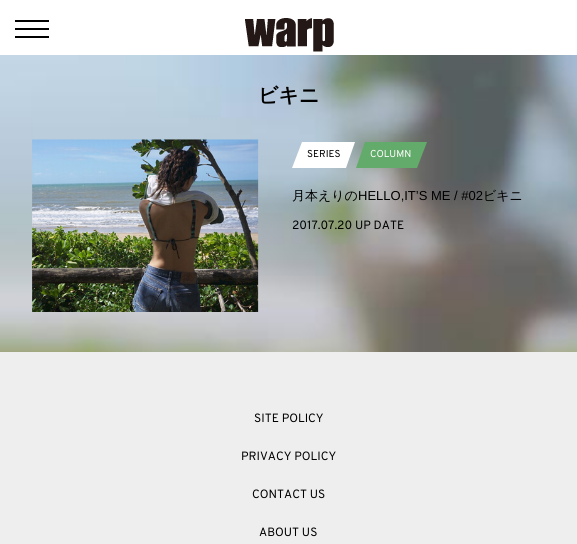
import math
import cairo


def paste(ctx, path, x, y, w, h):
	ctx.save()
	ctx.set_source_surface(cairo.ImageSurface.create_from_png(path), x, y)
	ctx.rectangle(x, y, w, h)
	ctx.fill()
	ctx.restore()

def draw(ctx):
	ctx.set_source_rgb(1, 1, 1)
	ctx.paint()
	ctx.set_source_rgb(0, 0, 0)
	ctx.rectangle(15, 20, 34, 2)
	ctx.rectangle(15, 28, 34, 2)
	ctx.rectangle(15, 36, 34, 2)
	ctx.fill()
	paste(ctx, 'media/1.png', 245, 18, 89, 34)
	paste(ctx, 'media/2.png', 0, 55, 577, 297)
	ctx.select_font_face('WenQuanYi Zen Hei', cairo.FONT_SLANT_NORMAL, cairo.FONT_WEIGHT_BOLD)
	ctx.set_font_size(20)
	ctx.move_to(258, 102)
	ctx.show_text('ビキニ')
	paste(ctx, 'media/3.png', 32, 139, 227, 173)
	ctx.set_source_rgb(1, 1, 1)
	ctx.new_path()
	ctx.move_to(302, 142)
	ctx.line_to(355, 142)
	ctx.line_to(346, 168)
	ctx.line_to(292, 168)
	ctx.close_path()
	ctx.fill()
	ctx.select_font_face('Overpass')
	ctx.set_font_size(10)
	ctx.set_source_rgb(0, 0, 0)
	ctx.move_to(307, 157)
	ctx.show_text('SERIES')
	ctx.set_source_rgb(0.388, 0.671, 0.42)
	ctx.new_path()
	ctx.move_to(365, 142)
	ctx.line_to(427, 142)
	ctx.line_to(417, 168)
	ctx.line_to(356, 168)
	ctx.close_path()
	ctx.fill()
	ctx.set_source_rgb(1, 1, 1)
	ctx.move_to(370, 157)
	ctx.show_text('COLUMN')
	ctx.select_font_face('WenQuanYi Zen Hei Medium')
	ctx.set_font_size(13)
	ctx.set_source_rgb(0, 0, 0)
	ctx.move_to(292, 200)
	ctx.show_text('月本えりの')
	ctx.select_font_face('Liberation Sans')
	ctx.move_to(358, 200)
	ctx.show_text('HELLO,IT’S ME / #02')
	ctx.select_font_face('WenQuanYi Zen Hei Medium')
	ctx.move_to(483, 200)
	ctx.show_text('ビキニ')
	ctx.select_font_face('Overpass')
	ctx.set_font_size(12)
	ctx.move_to(292, 229)
	ctx.show_text('2017.07.20 UP DATE')
	ctx.set_source_rgb(0.933, 0.933, 0.933)
	ctx.rectangle(0, 352, 577, 192)
	ctx.fill()
	ctx.set_source_rgb(0, 0, 0)
	for x, y, s in [
		(254, 422, 'SITE POLICY'),
		(241, 460, 'PRIVACY POLICY'),
		(252, 498, 'CONTACT US'),
		(259, 536, 'ABOUT US'),
	]:
		ctx.move_to(x, y)
		ctx.show_text(s)


surface = cairo.ImageSurface(cairo.FORMAT_RGB24, 577, 544)
ctx = cairo.Context(surface)
options = cairo.FontOptions()
options.set_hint_metrics(cairo.HINT_METRICS_OFF)
options.set_hint_style(cairo.HINT_STYLE_NONE)
ctx.set_font_options(options)
ctx.set_miter_limit(4)
draw(ctx)
surface.write_to_png('image.png')
